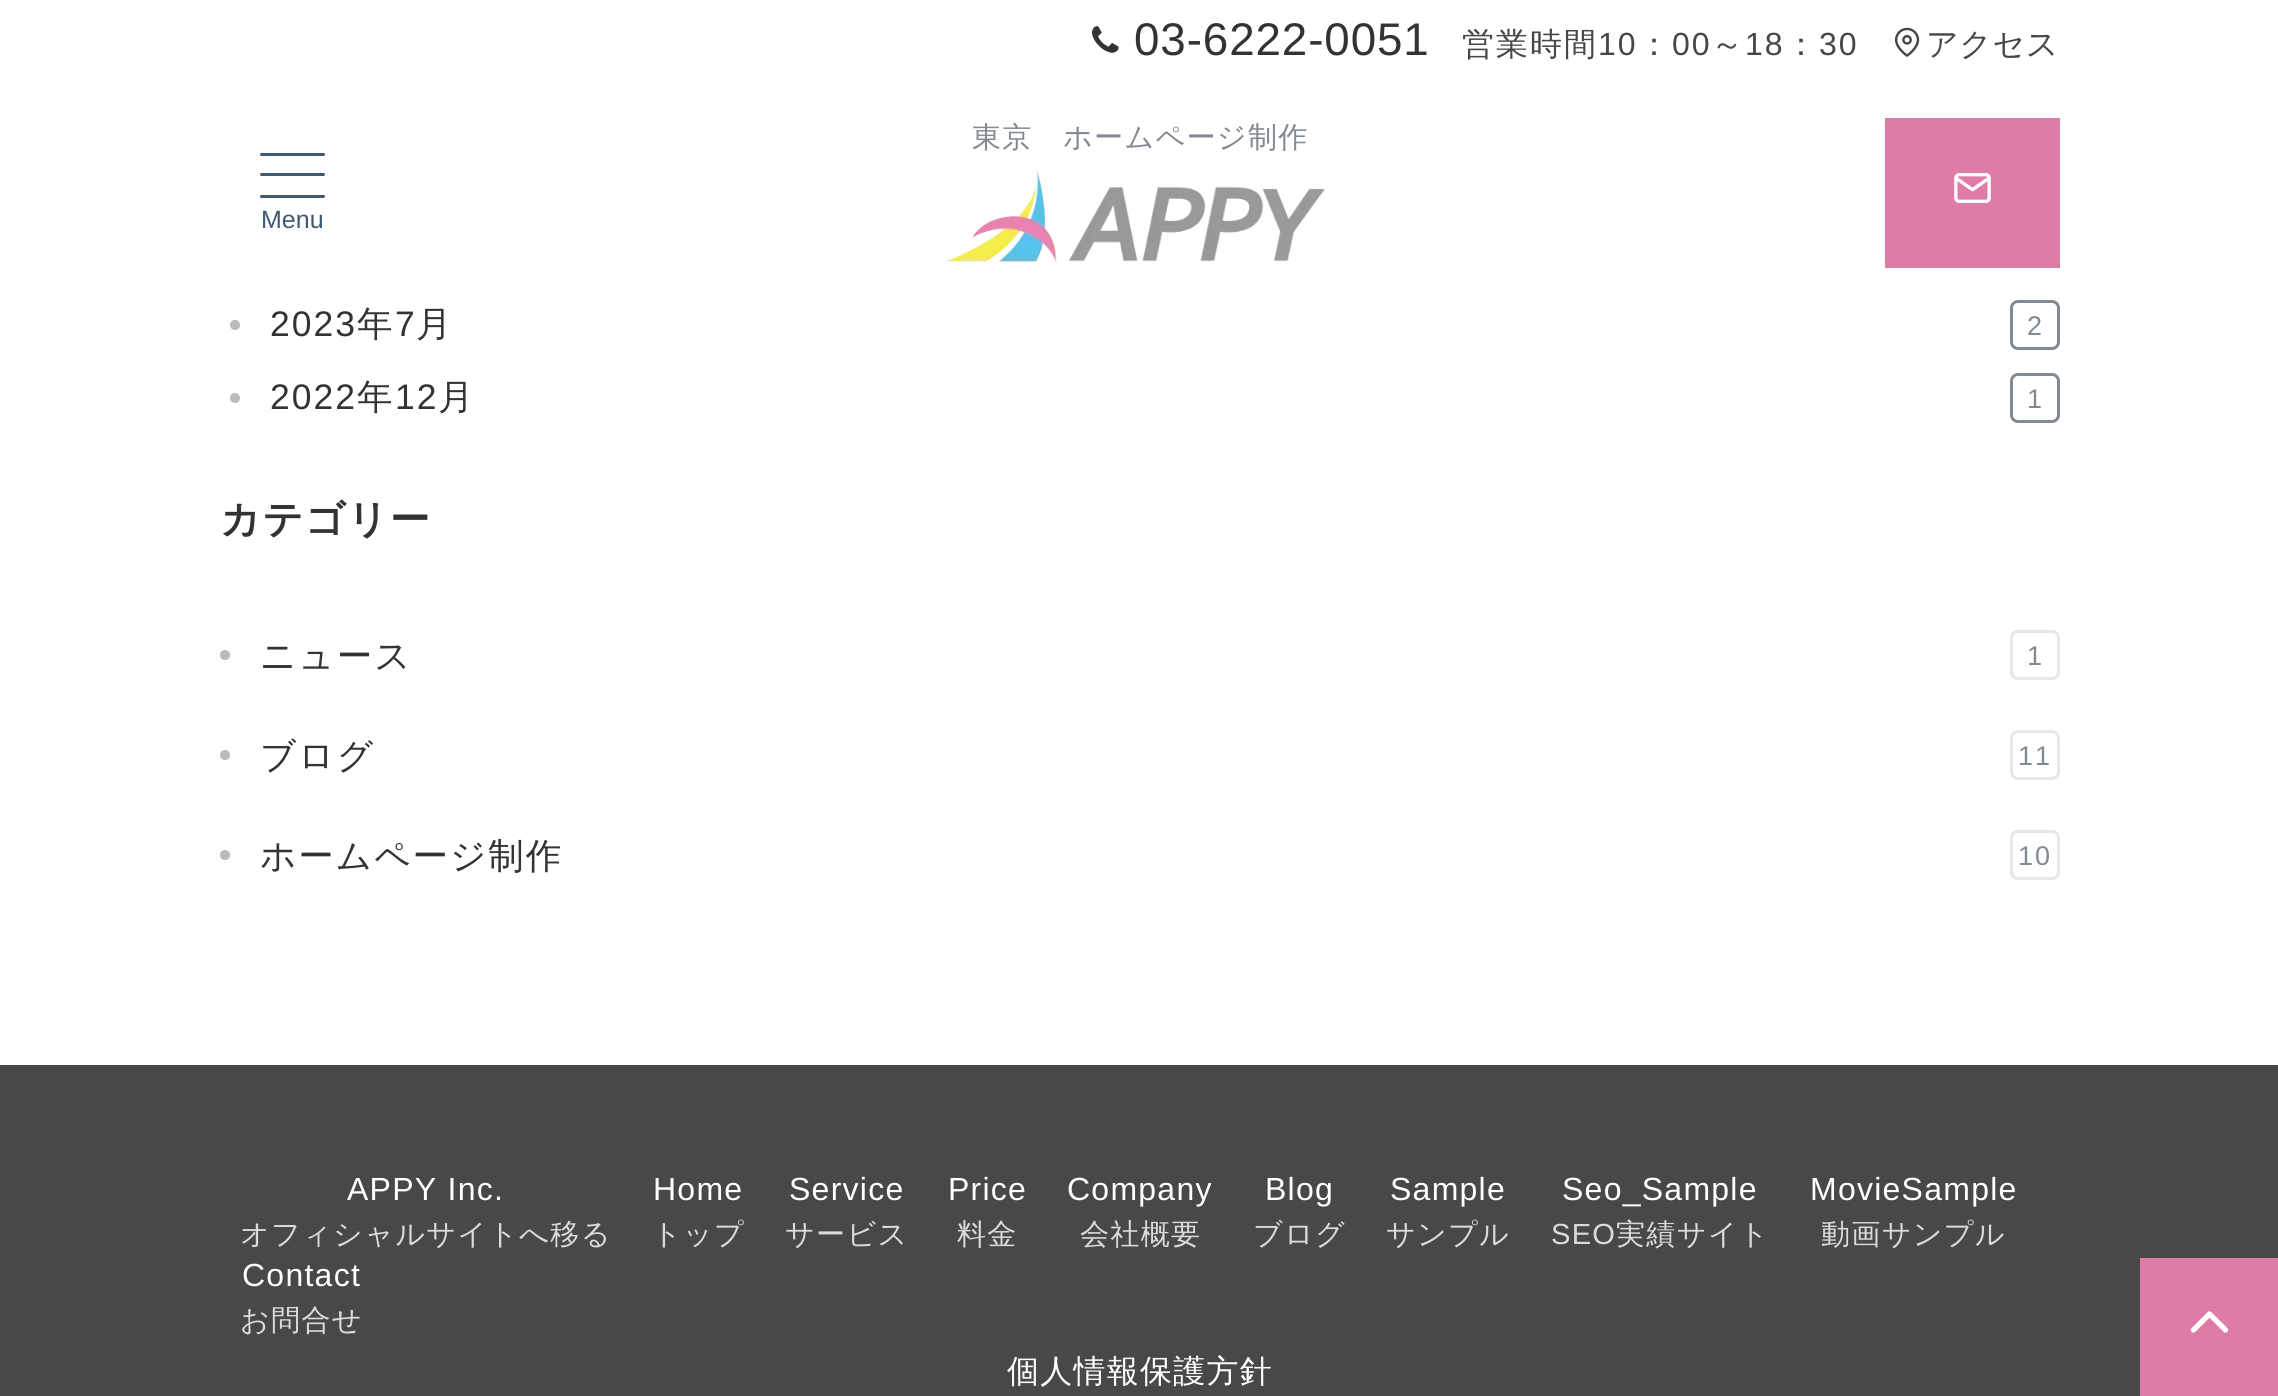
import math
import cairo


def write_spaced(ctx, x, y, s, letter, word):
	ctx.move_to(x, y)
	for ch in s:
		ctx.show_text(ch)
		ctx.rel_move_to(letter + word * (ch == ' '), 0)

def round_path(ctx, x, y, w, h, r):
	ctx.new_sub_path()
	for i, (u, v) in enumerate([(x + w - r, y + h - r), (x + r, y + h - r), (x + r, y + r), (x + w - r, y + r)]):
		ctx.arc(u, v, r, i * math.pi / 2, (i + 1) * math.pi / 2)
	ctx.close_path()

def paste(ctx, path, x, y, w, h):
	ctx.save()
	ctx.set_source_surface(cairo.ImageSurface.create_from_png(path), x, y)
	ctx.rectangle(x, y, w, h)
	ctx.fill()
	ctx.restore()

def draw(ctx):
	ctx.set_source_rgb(1, 1, 1)
	ctx.paint()
	paste(ctx, 'media/1.png', 1091, 26, 28, 27)
	ctx.select_font_face('Liberation Sans')
	ctx.set_font_size(45.75)
	ctx.set_source_rgb(0.2, 0.2, 0.2)
	write_spaced(ctx, 1134, 55, '03-6222-0051', 0.9, 0)
	ctx.select_font_face('WenQuanYi Zen Hei Medium')
	ctx.set_font_size(32)
	ctx.set_source_rgb(0.278, 0.278, 0.278)
	write_spaced(ctx, 1462, 55, '営業時間', 2, 0)
	ctx.select_font_face('Liberation Sans')
	write_spaced(ctx, 1598, 55, '10', 2, 0)
	ctx.select_font_face('WenQuanYi Zen Hei Medium')
	write_spaced(ctx, 1638, 55, '：', 2, 0)
	ctx.select_font_face('Liberation Sans')
	write_spaced(ctx, 1672, 55, '00', 2, 0)
	ctx.select_font_face('WenQuanYi Zen Hei Medium')
	write_spaced(ctx, 1711, 55, '～', 2, 0)
	ctx.select_font_face('Liberation Sans')
	write_spaced(ctx, 1745, 55, '18', 2, 0)
	ctx.select_font_face('WenQuanYi Zen Hei Medium')
	write_spaced(ctx, 1785, 55, '：', 2, 0)
	ctx.select_font_face('Liberation Sans')
	write_spaced(ctx, 1819, 55, '30', 2, 0)
	paste(ctx, 'media/2.png', 1894, 27, 26, 30)
	ctx.select_font_face('WenQuanYi Zen Hei Medium')
	write_spaced(ctx, 1926, 55, 'アクセス', 0.5, 0)
	ctx.set_font_size(29.1)
	ctx.set_source_rgb(0.51, 0.537, 0.565)
	write_spaced(ctx, 972, 147, '東京　ホームページ制作', 1.25, 0)
	paste(ctx, 'media/3.png', 946, 170, 379, 93)
	ctx.set_source_rgb(0.871, 0.486, 0.655)
	ctx.rectangle(1885, 118, 175, 150)
	ctx.fill()
	paste(ctx, 'media/4.png', 1954, 173, 37, 30)
	ctx.set_source_rgb(0.247, 0.349, 0.451)
	round_path(ctx, 260, 153, 65, 3, 1.5)
	ctx.fill()
	round_path(ctx, 260, 173, 65, 3, 1.5)
	ctx.fill()
	round_path(ctx, 260, 195, 65, 3, 1.5)
	ctx.fill()
	ctx.select_font_face('Liberation Sans')
	ctx.set_font_size(25)
	ctx.move_to(261, 228)
	ctx.show_text('Menu')
	ctx.set_source_rgb(0.722, 0.737, 0.753)
	ctx.new_path()
	ctx.arc(235, 325, 5, 0, 2 * math.pi)
	ctx.fill()
	ctx.set_font_size(35.5)
	ctx.set_source_rgb(0.2, 0.2, 0.2)
	write_spaced(ctx, 270, 336, '2023', 2, 0)
	ctx.select_font_face('WenQuanYi Zen Hei Medium')
	write_spaced(ctx, 357, 336, '年', 2, 0)
	ctx.select_font_face('Liberation Sans')
	write_spaced(ctx, 395, 336, '7', 2, 0)
	ctx.select_font_face('WenQuanYi Zen Hei Medium')
	write_spaced(ctx, 416, 336, '月', 2, 0)
	round_path(ctx, 2011.5, 301.5, 47, 47, 6.5)
	ctx.set_source_rgb(0.51, 0.537, 0.565)
	ctx.set_line_width(3)
	ctx.stroke()
	ctx.select_font_face('Liberation Sans')
	ctx.set_font_size(27)
	write_spaced(ctx, 2027, 335, '2', 2, 0)
	ctx.set_source_rgb(0.722, 0.737, 0.753)
	ctx.new_path()
	ctx.arc(235, 398, 5, 0, 2 * math.pi)
	ctx.fill()
	ctx.set_font_size(35.5)
	ctx.set_source_rgb(0.2, 0.2, 0.2)
	write_spaced(ctx, 270, 409, '2022', 2, 0)
	ctx.select_font_face('WenQuanYi Zen Hei Medium')
	write_spaced(ctx, 357, 409, '年', 2, 0)
	ctx.select_font_face('Liberation Sans')
	write_spaced(ctx, 395, 409, '12', 2, 0)
	ctx.select_font_face('WenQuanYi Zen Hei Medium')
	write_spaced(ctx, 438, 409, '月', 2, 0)
	round_path(ctx, 2011.5, 374.5, 47, 47, 6.5)
	ctx.set_source_rgb(0.51, 0.537, 0.565)
	ctx.stroke()
	ctx.select_font_face('Liberation Sans')
	ctx.set_font_size(27)
	write_spaced(ctx, 2027, 408, '1', 2, 0)
	ctx.select_font_face('WenQuanYi Zen Hei', cairo.FONT_SLANT_NORMAL, cairo.FONT_WEIGHT_BOLD)
	ctx.set_font_size(40)
	ctx.set_source_rgb(0.2, 0.2, 0.2)
	write_spaced(ctx, 220, 533, 'カテゴリー', 1.5, 0)
	ctx.set_source_rgb(0.722, 0.737, 0.753)
	ctx.new_path()
	ctx.arc(225, 655, 5, 0, 2 * math.pi)
	ctx.fill()
	ctx.select_font_face('WenQuanYi Zen Hei Medium')
	ctx.set_font_size(35.5)
	ctx.set_source_rgb(0.2, 0.2, 0.2)
	write_spaced(ctx, 260, 668, 'ニュース', 2, 0)
	round_path(ctx, 2011.5, 631.5, 47, 47, 6.5)
	ctx.set_source_rgb(0.898, 0.906, 0.91)
	ctx.stroke()
	ctx.select_font_face('Liberation Sans')
	ctx.set_font_size(27)
	ctx.set_source_rgb(0.51, 0.537, 0.565)
	write_spaced(ctx, 2027, 665, '1', 2, 0)
	ctx.set_source_rgb(0.722, 0.737, 0.753)
	ctx.new_path()
	ctx.arc(225, 755, 5, 0, 2 * math.pi)
	ctx.fill()
	ctx.select_font_face('WenQuanYi Zen Hei Medium')
	ctx.set_font_size(35.5)
	ctx.set_source_rgb(0.2, 0.2, 0.2)
	write_spaced(ctx, 260, 768, 'ブログ', 2, 0)
	round_path(ctx, 2011.5, 731.5, 47, 47, 6.5)
	ctx.set_source_rgb(0.898, 0.906, 0.91)
	ctx.stroke()
	ctx.select_font_face('Liberation Sans')
	ctx.set_font_size(27)
	ctx.set_source_rgb(0.51, 0.537, 0.565)
	write_spaced(ctx, 2018, 765, '11', 2, 0)
	ctx.set_source_rgb(0.722, 0.737, 0.753)
	ctx.new_path()
	ctx.arc(225, 855, 5, 0, 2 * math.pi)
	ctx.fill()
	ctx.select_font_face('WenQuanYi Zen Hei Medium')
	ctx.set_font_size(35.5)
	ctx.set_source_rgb(0.2, 0.2, 0.2)
	write_spaced(ctx, 260, 868, 'ホームページ制作', 2, 0)
	round_path(ctx, 2011.5, 831.5, 47, 47, 6.5)
	ctx.set_source_rgb(0.898, 0.906, 0.91)
	ctx.stroke()
	ctx.select_font_face('Liberation Sans')
	ctx.set_font_size(27)
	ctx.set_source_rgb(0.51, 0.537, 0.565)
	write_spaced(ctx, 2018, 865, '10', 2, 0)
	ctx.set_source_rgb(0.282, 0.282, 0.282)
	ctx.rectangle(0, 1065, 2278, 331)
	ctx.fill()
	ctx.set_font_size(32)
	ctx.set_source_rgb(1, 1, 1)
	write_spaced(ctx, 347, 1200, 'APPY Inc.', 1.25, 0)
	ctx.select_font_face('WenQuanYi Zen Hei Medium')
	ctx.set_font_size(29.1)
	ctx.set_source_rgb(0.855, 0.855, 0.855)
	write_spaced(ctx, 240, 1244, 'オフィシャルサイトへ移る', 1.25, 0)
	ctx.select_font_face('Liberation Sans')
	ctx.set_font_size(32)
	ctx.set_source_rgb(1, 1, 1)
	write_spaced(ctx, 653, 1200, 'Home', 1.25, 0)
	ctx.select_font_face('WenQuanYi Zen Hei Medium')
	ctx.set_font_size(29.1)
	ctx.set_source_rgb(0.855, 0.855, 0.855)
	write_spaced(ctx, 652, 1244, 'トップ', 1.25, 0)
	ctx.select_font_face('Liberation Sans')
	ctx.set_font_size(32)
	ctx.set_source_rgb(1, 1, 1)
	write_spaced(ctx, 789, 1200, 'Service', 1.25, 0)
	ctx.select_font_face('WenQuanYi Zen Hei Medium')
	ctx.set_font_size(29.1)
	ctx.set_source_rgb(0.855, 0.855, 0.855)
	write_spaced(ctx, 785, 1244, 'サービス', 1.25, 0)
	ctx.select_font_face('Liberation Sans')
	ctx.set_font_size(32)
	ctx.set_source_rgb(1, 1, 1)
	write_spaced(ctx, 948, 1200, 'Price', 1.25, 0)
	ctx.select_font_face('WenQuanYi Zen Hei Medium')
	ctx.set_font_size(29.1)
	ctx.set_source_rgb(0.855, 0.855, 0.855)
	write_spaced(ctx, 957, 1244, '料金', 1.25, 0)
	ctx.select_font_face('Liberation Sans')
	ctx.set_font_size(32)
	ctx.set_source_rgb(1, 1, 1)
	write_spaced(ctx, 1067, 1200, 'Company', 1.25, 0)
	ctx.select_font_face('WenQuanYi Zen Hei Medium')
	ctx.set_font_size(29.1)
	ctx.set_source_rgb(0.855, 0.855, 0.855)
	write_spaced(ctx, 1080, 1244, '会社概要', 1.25, 0)
	ctx.select_font_face('Liberation Sans')
	ctx.set_font_size(32)
	ctx.set_source_rgb(1, 1, 1)
	write_spaced(ctx, 1265, 1200, 'Blog', 1.25, 0)
	ctx.select_font_face('WenQuanYi Zen Hei Medium')
	ctx.set_font_size(29.1)
	ctx.set_source_rgb(0.855, 0.855, 0.855)
	write_spaced(ctx, 1253, 1244, 'ブログ', 1.25, 0)
	ctx.select_font_face('Liberation Sans')
	ctx.set_font_size(32)
	ctx.set_source_rgb(1, 1, 1)
	write_spaced(ctx, 1390, 1200, 'Sample', 1.25, 0)
	ctx.select_font_face('WenQuanYi Zen Hei Medium')
	ctx.set_font_size(29.1)
	ctx.set_source_rgb(0.855, 0.855, 0.855)
	write_spaced(ctx, 1386, 1244, 'サンプル', 1.25, 0)
	ctx.select_font_face('Liberation Sans')
	ctx.set_font_size(32)
	ctx.set_source_rgb(1, 1, 1)
	write_spaced(ctx, 1562, 1200, 'Seo_Sample', 1.25, 0)
	ctx.set_font_size(29.1)
	ctx.set_source_rgb(0.855, 0.855, 0.855)
	write_spaced(ctx, 1551, 1244, 'SEO', 1.25, 0)
	ctx.select_font_face('WenQuanYi Zen Hei Medium')
	write_spaced(ctx, 1616, 1244, '実績サイト', 1.25, 0)
	ctx.select_font_face('Liberation Sans')
	ctx.set_font_size(32)
	ctx.set_source_rgb(1, 1, 1)
	write_spaced(ctx, 1810, 1200, 'MovieSample', 1.25, 0)
	ctx.select_font_face('WenQuanYi Zen Hei Medium')
	ctx.set_font_size(29.1)
	ctx.set_source_rgb(0.855, 0.855, 0.855)
	write_spaced(ctx, 1821, 1244, '動画サンプル', 1.25, 0)
	ctx.select_font_face('Liberation Sans')
	ctx.set_font_size(32)
	ctx.set_source_rgb(1, 1, 1)
	write_spaced(ctx, 242, 1286, 'Contact', 1.25, 0)
	ctx.select_font_face('WenQuanYi Zen Hei Medium')
	ctx.set_font_size(29.1)
	ctx.set_source_rgb(0.855, 0.855, 0.855)
	write_spaced(ctx, 240, 1330, 'お問合せ', 1.25, 0)
	ctx.set_font_size(32)
	ctx.set_source_rgb(1, 1, 1)
	write_spaced(ctx, 1007, 1382, '個人情報保護方針', 1.25, 0)
	ctx.set_source_rgb(0.871, 0.486, 0.655)
	ctx.rectangle(2140, 1258, 138, 138)
	ctx.fill()
	paste(ctx, 'media/5.png', 2190, 1311, 39, 22)


surface = cairo.ImageSurface(cairo.FORMAT_RGB24, 2278, 1396)
ctx = cairo.Context(surface)
options = cairo.FontOptions()
options.set_hint_metrics(cairo.HINT_METRICS_OFF)
options.set_hint_style(cairo.HINT_STYLE_NONE)
ctx.set_font_options(options)
ctx.set_miter_limit(4)
draw(ctx)
surface.write_to_png('image.png')
